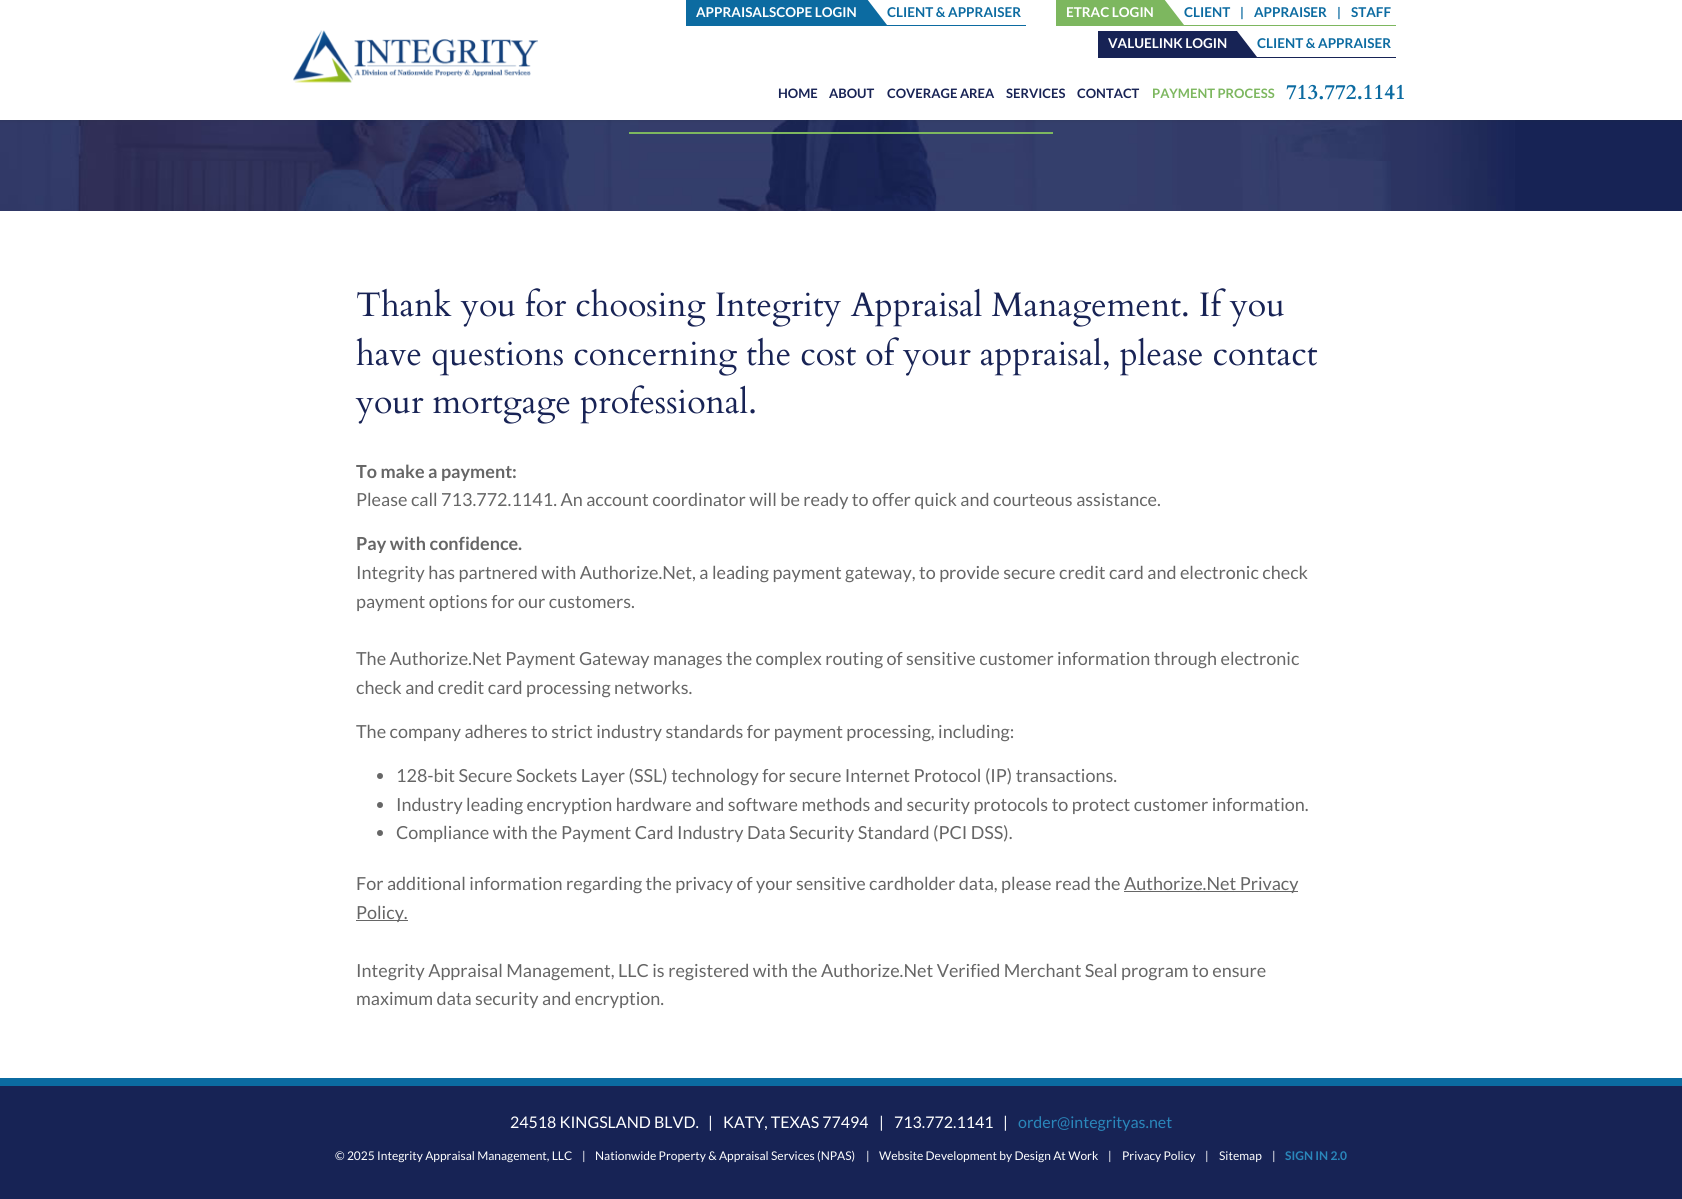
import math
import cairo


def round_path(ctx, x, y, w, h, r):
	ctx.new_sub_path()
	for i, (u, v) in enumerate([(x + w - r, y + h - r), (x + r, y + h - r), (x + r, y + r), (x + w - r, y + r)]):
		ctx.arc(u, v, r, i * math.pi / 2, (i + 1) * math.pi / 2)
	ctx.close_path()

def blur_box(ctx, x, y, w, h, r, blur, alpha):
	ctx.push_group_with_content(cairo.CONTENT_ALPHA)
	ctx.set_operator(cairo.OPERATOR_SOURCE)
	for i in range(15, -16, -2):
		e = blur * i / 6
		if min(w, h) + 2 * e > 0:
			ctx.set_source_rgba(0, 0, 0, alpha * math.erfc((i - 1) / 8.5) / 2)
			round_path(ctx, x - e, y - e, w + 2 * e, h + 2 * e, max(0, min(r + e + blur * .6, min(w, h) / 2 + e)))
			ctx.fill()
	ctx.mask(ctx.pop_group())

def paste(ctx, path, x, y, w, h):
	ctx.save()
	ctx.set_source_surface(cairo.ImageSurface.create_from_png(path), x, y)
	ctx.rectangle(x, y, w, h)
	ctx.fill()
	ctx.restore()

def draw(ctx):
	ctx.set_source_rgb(1, 1, 1)
	ctx.paint()
	ctx.set_source_rgb(0.09, 0.137, 0.333)
	ctx.rectangle(1515, 120, 167, 91)
	ctx.fill()
	paste(ctx, 'media/2.png', 0, 120, 1515, 91)
	ctx.set_source_rgb(0.129, 0.161, 0.192)
	blur_box(ctx, 0, 1, 1682, 120, 0, 1.5, 0.18)
	ctx.set_source_rgb(1, 1, 1)
	ctx.rectangle(0, 0, 1682, 120)
	ctx.fill()
	paste(ctx, 'media/1.png', 293, 30, 245, 53)
	ctx.set_source_rgb(0.047, 0.42, 0.631)
	ctx.rectangle(686, 25, 340, 1)
	ctx.fill()
	ctx.rectangle(686, 0, 181, 25)
	ctx.fill()
	ctx.select_font_face('Lato', cairo.FONT_SLANT_NORMAL, cairo.FONT_WEIGHT_BOLD)
	ctx.set_font_size(13.5)
	ctx.set_source_rgb(1, 1, 1)
	ctx.move_to(696, 17)
	ctx.show_text('APPRAISALSCOPE LOGIN')
	ctx.set_source_rgb(0.047, 0.42, 0.631)
	ctx.new_path()
	ctx.move_to(887, 25)
	ctx.line_to(867, 25)
	ctx.line_to(867, -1)
	ctx.close_path()
	ctx.fill()
	ctx.move_to(887, 17)
	ctx.show_text('CLIENT & APPRAISER')
	ctx.set_source_rgb(0.49, 0.718, 0.373)
	ctx.rectangle(1056, 25, 340, 1)
	ctx.fill()
	ctx.rectangle(1056, 0, 108, 25)
	ctx.fill()
	ctx.set_source_rgb(1, 1, 1)
	ctx.move_to(1066, 17)
	ctx.show_text('ETRAC LOGIN')
	ctx.set_source_rgb(0.49, 0.718, 0.373)
	ctx.new_path()
	ctx.move_to(1184, 25)
	ctx.line_to(1164, 25)
	ctx.line_to(1164, -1)
	ctx.close_path()
	ctx.fill()
	ctx.set_source_rgb(0.047, 0.42, 0.631)
	ctx.move_to(1184, 17)
	ctx.show_text('CLIENT')
	ctx.set_font_size(13)
	ctx.move_to(1240, 17)
	ctx.show_text('|')
	ctx.set_font_size(13.5)
	ctx.move_to(1254, 17)
	ctx.show_text('APPRAISER')
	ctx.set_font_size(13)
	ctx.move_to(1337, 17)
	ctx.show_text('|')
	ctx.set_font_size(13.5)
	ctx.move_to(1351, 17)
	ctx.show_text('STAFF')
	ctx.set_source_rgb(0.09, 0.137, 0.333)
	ctx.rectangle(1098, 57, 298, 1)
	ctx.fill()
	ctx.rectangle(1098, 31, 139, 26)
	ctx.fill()
	ctx.set_source_rgb(1, 1, 1)
	ctx.move_to(1108, 48)
	ctx.show_text('VALUELINK LOGIN')
	ctx.set_source_rgb(0.09, 0.137, 0.333)
	ctx.new_path()
	ctx.move_to(1257, 57)
	ctx.line_to(1237, 57)
	ctx.line_to(1237, 31)
	ctx.close_path()
	ctx.fill()
	ctx.set_source_rgb(0.047, 0.42, 0.631)
	ctx.move_to(1257, 48)
	ctx.show_text('CLIENT & APPRAISER')
	ctx.set_font_size(13)
	ctx.set_source_rgb(0.094, 0.137, 0.333)
	for x, y, s in [
		(778, 98, 'HOME'),
		(829, 98, 'ABOUT'),
		(887, 98, 'COVERAGE AREA'),
		(1006, 98, 'SERVICES'),
		(1077, 98, 'CONTACT'),
	]:
		ctx.move_to(x, y)
		ctx.show_text(s)
	ctx.set_source_rgb(0.49, 0.718, 0.373)
	ctx.move_to(1152, 98)
	ctx.show_text('PAYMENT PROCESS')
	ctx.select_font_face('Cardo', cairo.FONT_SLANT_NORMAL, cairo.FONT_WEIGHT_BOLD)
	ctx.set_font_size(21)
	ctx.set_source_rgb(0.047, 0.42, 0.631)
	ctx.move_to(1286, 99)
	ctx.show_text('713.772.1141')
	ctx.set_source_rgb(0.49, 0.718, 0.373)
	ctx.rectangle(629, 132, 424, 2)
	ctx.fill()
	ctx.select_font_face('Cardo')
	ctx.set_font_size(34)
	ctx.set_source_rgb(0.094, 0.137, 0.333)
	for x, y, s in [
		(356, 316, 'Thank you for choosing Integrity Appraisal Management. If you'),
		(356, 365, 'have questions concerning the cost of your appraisal, please contact'),
		(356, 413, 'your mortgage professional.'),
	]:
		ctx.move_to(x, y)
		ctx.show_text(s)
	ctx.select_font_face('Lato', cairo.FONT_SLANT_NORMAL, cairo.FONT_WEIGHT_BOLD)
	ctx.set_font_size(18)
	ctx.set_source_rgb(0.4, 0.4, 0.4)
	ctx.move_to(356, 478)
	ctx.show_text('To make a payment:')
	ctx.select_font_face('Lato')
	ctx.move_to(356, 506)
	ctx.show_text('Please call 713.772.1141. An account coordinator will be ready to offer quick and courteous assistance.')
	ctx.select_font_face('Lato', cairo.FONT_SLANT_NORMAL, cairo.FONT_WEIGHT_BOLD)
	ctx.move_to(356, 550)
	ctx.show_text('Pay with confidence.')
	ctx.select_font_face('Lato')
	for x, y, s in [
		(356, 579, 'Integrity has partnered with Authorize.Net, a leading payment gateway, to provide secure credit card and electronic check'),
		(356, 608, 'payment options for our customers.'),
		(356, 665, 'The Authorize.Net Payment Gateway manages the complex routing of sensitive customer information through electronic'),
		(356, 694, 'check and credit card processing networks.'),
		(356, 738, 'The company adheres to strict industry standards for payment processing, including:'),
	]:
		ctx.move_to(x, y)
		ctx.show_text(s)
	ctx.new_path()
	ctx.arc(380, 776, 3, 0, 2 * math.pi)
	ctx.fill()
	ctx.move_to(396, 782)
	ctx.show_text('128-bit Secure Sockets Layer (SSL) technology for secure Internet Protocol (IP) transactions.')
	ctx.new_path()
	ctx.arc(380, 805, 3, 0, 2 * math.pi)
	ctx.fill()
	ctx.move_to(396, 811)
	ctx.show_text('Industry leading encryption hardware and software methods and security protocols to protect customer information.')
	ctx.new_path()
	ctx.arc(380, 833, 3, 0, 2 * math.pi)
	ctx.fill()
	ctx.move_to(396, 839)
	ctx.show_text('Compliance with the Payment Card Industry Data Security Standard (PCI DSS).')
	ctx.move_to(356, 890)
	ctx.show_text('For additional information regarding the privacy of your sensitive cardholder data, please read the')
	ctx.rectangle(1124, 891, 174, 1)
	ctx.fill()
	ctx.move_to(1124, 890)
	ctx.show_text('Authorize.Net Privacy')
	ctx.rectangle(356, 920, 52, 1)
	ctx.fill()
	for x, y, s in [
		(356, 919, 'Policy.'),
		(356, 977, 'Integrity Appraisal Management, LLC is registered with the Authorize.Net Verified Merchant Seal program to ensure'),
		(356, 1005, 'maximum data security and encryption.'),
	]:
		ctx.move_to(x, y)
		ctx.show_text(s)
	ctx.set_source_rgb(0.09, 0.137, 0.333)
	ctx.rectangle(0, 1086, 1682, 113)
	ctx.fill()
	ctx.set_source_rgb(0.043, 0.42, 0.631)
	ctx.rectangle(0, 1078, 1682, 8)
	ctx.fill()
	ctx.set_font_size(16)
	ctx.set_source_rgb(1, 1, 1)
	for x, y, s in [
		(510, 1128, '24518 KINGSLAND BLVD.'),
		(708, 1128, '|'),
		(723, 1128, 'KATY, TEXAS 77494'),
		(879, 1128, '|'),
		(894, 1128, '713.772.1141'),
		(1003, 1128, '|'),
	]:
		ctx.move_to(x, y)
		ctx.show_text(s)
	ctx.set_source_rgb(0.165, 0.529, 0.733)
	ctx.move_to(1018, 1128)
	ctx.show_text('order@integrityas.net')
	ctx.set_font_size(12)
	ctx.set_source_rgb(1, 1, 1)
	for x, y, s in [
		(335, 1160, '© 2025 Integrity Appraisal Management, LLC'),
		(582, 1160, '|'),
		(595, 1160, 'Nationwide Property & Appraisal Services (NPAS)'),
		(866, 1160, '|'),
		(879, 1160, 'Website Development by Design At Work'),
		(1108, 1160, '|'),
		(1122, 1160, 'Privacy Policy'),
		(1205, 1160, '|'),
		(1219, 1160, 'Sitemap'),
		(1272, 1160, '|'),
	]:
		ctx.move_to(x, y)
		ctx.show_text(s)
	ctx.select_font_face('Lato', cairo.FONT_SLANT_NORMAL, cairo.FONT_WEIGHT_BOLD)
	ctx.set_source_rgb(0.165, 0.529, 0.733)
	ctx.move_to(1285, 1160)
	ctx.show_text('SIGN IN 2.0')


surface = cairo.ImageSurface(cairo.FORMAT_RGB24, 1682, 1199)
ctx = cairo.Context(surface)
options = cairo.FontOptions()
options.set_hint_metrics(cairo.HINT_METRICS_OFF)
options.set_hint_style(cairo.HINT_STYLE_NONE)
ctx.set_font_options(options)
ctx.set_miter_limit(4)
draw(ctx)
surface.write_to_png('image.png')
